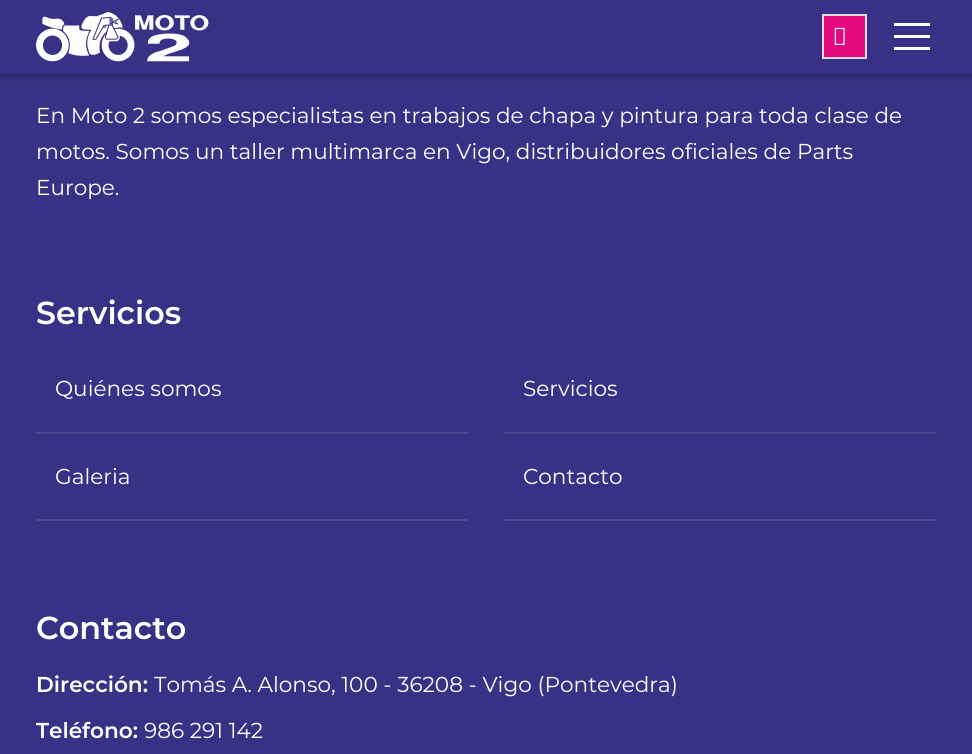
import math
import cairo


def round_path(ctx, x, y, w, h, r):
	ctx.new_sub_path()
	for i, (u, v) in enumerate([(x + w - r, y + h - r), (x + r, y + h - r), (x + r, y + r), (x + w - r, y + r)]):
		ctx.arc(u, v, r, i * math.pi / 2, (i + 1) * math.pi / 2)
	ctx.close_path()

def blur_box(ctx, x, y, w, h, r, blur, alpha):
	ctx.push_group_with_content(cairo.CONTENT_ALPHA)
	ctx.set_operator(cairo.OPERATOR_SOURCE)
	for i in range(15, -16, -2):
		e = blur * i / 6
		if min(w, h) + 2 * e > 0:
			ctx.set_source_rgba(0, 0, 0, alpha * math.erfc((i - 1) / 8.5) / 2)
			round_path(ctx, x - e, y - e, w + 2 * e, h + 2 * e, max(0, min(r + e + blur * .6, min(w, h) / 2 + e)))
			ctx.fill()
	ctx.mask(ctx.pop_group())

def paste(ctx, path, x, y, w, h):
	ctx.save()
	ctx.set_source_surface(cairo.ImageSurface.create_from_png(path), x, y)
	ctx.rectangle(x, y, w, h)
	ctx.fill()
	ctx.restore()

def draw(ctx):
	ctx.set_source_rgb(0.224, 0.192, 0.522)
	ctx.paint()
	ctx.set_source_rgb(0, 0, 0)
	blur_box(ctx, 0, 2, 972, 73, 0, 4.5, 0.3)
	ctx.set_source_rgb(0.224, 0.192, 0.522)
	ctx.rectangle(0, 0, 972, 74)
	ctx.fill()
	paste(ctx, 'media/1.png', 36, 12, 173, 50)
	ctx.set_source_rgb(0.898, 0.035, 0.498)
	ctx.rectangle(823, 15, 43, 43)
	ctx.fill_preserve()
	ctx.set_source_rgb(0.867, 0.867, 0.867)
	ctx.stroke()
	paste(ctx, 'media/2.png', 834, 27, 11, 18)
	ctx.set_source_rgb(1, 1, 1)
	ctx.rectangle(894, 23, 36, 3)
	ctx.rectangle(894, 35, 36, 3)
	ctx.rectangle(894, 47, 36, 3)
	ctx.fill()
	ctx.select_font_face('Montserrat')
	ctx.set_font_size(21.6)
	for x, y, s in [
		(36, 123, 'En Moto 2 somos especialistas en trabajos de chapa y pintura para toda clase de'),
		(36, 159, 'motos. Somos un taller multimarca en Vigo, distribuidores oficiales de Parts'),
		(36, 195, 'Europe.'),
	]:
		ctx.move_to(x, y)
		ctx.show_text(s)
	ctx.select_font_face('Montserrat SemiBold')
	ctx.set_font_size(31.75)
	ctx.move_to(36, 324)
	ctx.show_text('Servicios')
	ctx.set_source_rgb(0.302, 0.275, 0.569)
	ctx.rectangle(36, 432, 432, 2)
	ctx.fill()
	ctx.select_font_face('Montserrat')
	ctx.set_font_size(21.6)
	ctx.set_source_rgb(1, 1, 1)
	ctx.move_to(55, 396)
	ctx.show_text('Quiénes somos')
	ctx.set_source_rgb(0.302, 0.275, 0.569)
	ctx.rectangle(504, 432, 432, 2)
	ctx.fill()
	ctx.set_source_rgb(1, 1, 1)
	ctx.move_to(523, 396)
	ctx.show_text('Servicios')
	ctx.set_source_rgb(0.302, 0.275, 0.569)
	ctx.rectangle(36, 519, 432, 2)
	ctx.fill()
	ctx.set_source_rgb(1, 1, 1)
	ctx.move_to(55, 484)
	ctx.show_text('Galeria')
	ctx.set_source_rgb(0.302, 0.275, 0.569)
	ctx.rectangle(504, 519, 432, 2)
	ctx.fill()
	ctx.set_source_rgb(1, 1, 1)
	ctx.move_to(523, 484)
	ctx.show_text('Contacto')
	ctx.select_font_face('Montserrat SemiBold')
	ctx.set_font_size(31.75)
	ctx.move_to(36, 639)
	ctx.show_text('Contacto')
	ctx.set_font_size(21.6)
	ctx.move_to(36, 692)
	ctx.show_text('Dirección:')
	ctx.select_font_face('Montserrat')
	ctx.move_to(154, 692)
	ctx.show_text('Tomás A. Alonso, 100 - 36208 - Vigo (Pontevedra)')
	ctx.select_font_face('Montserrat SemiBold')
	ctx.move_to(36, 738)
	ctx.show_text('Teléfono:')
	ctx.select_font_face('Montserrat')
	ctx.move_to(144, 738)
	ctx.show_text('986 291 142')


surface = cairo.ImageSurface(cairo.FORMAT_RGB24, 972, 754)
ctx = cairo.Context(surface)
options = cairo.FontOptions()
options.set_hint_metrics(cairo.HINT_METRICS_OFF)
options.set_hint_style(cairo.HINT_STYLE_NONE)
ctx.set_font_options(options)
ctx.set_miter_limit(4)
draw(ctx)
surface.write_to_png('image.png')
